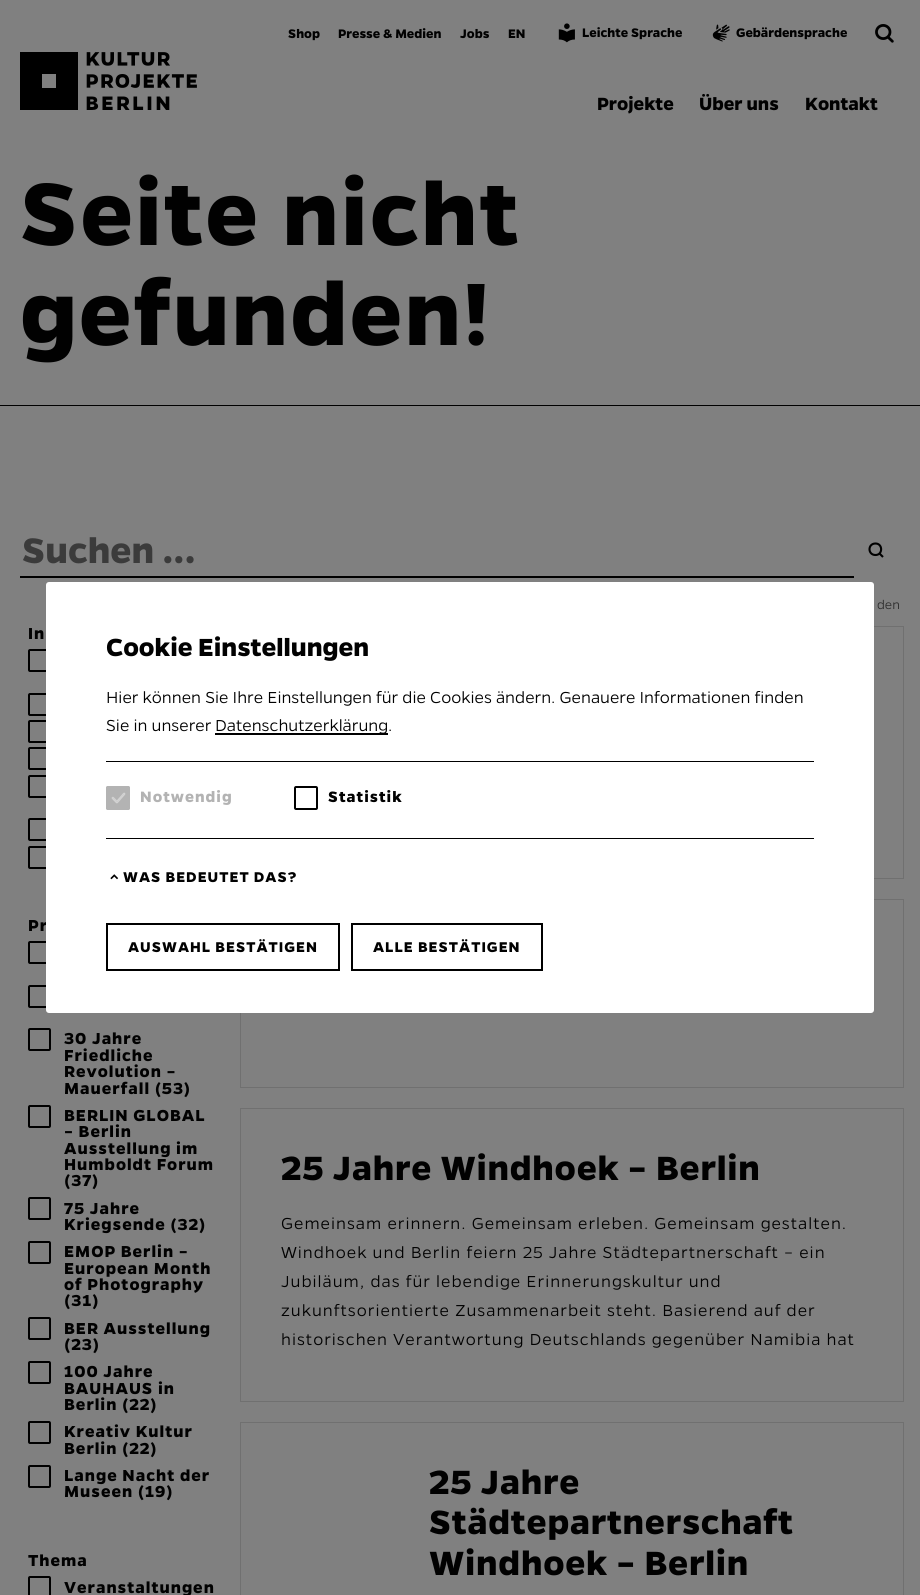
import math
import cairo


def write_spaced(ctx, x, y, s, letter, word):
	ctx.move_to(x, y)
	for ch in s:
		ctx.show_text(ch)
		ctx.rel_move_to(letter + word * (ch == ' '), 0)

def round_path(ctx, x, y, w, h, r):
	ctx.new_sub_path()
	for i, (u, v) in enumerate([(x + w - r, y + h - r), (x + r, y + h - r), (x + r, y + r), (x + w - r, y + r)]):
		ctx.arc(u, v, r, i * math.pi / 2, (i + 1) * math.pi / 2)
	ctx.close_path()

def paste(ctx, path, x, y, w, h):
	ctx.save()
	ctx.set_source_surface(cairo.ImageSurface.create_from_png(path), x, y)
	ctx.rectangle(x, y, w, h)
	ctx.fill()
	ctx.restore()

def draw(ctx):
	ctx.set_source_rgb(0.502, 0.502, 0.502)
	ctx.paint()
	ctx.select_font_face('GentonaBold')
	ctx.set_font_size(14)
	ctx.set_source_rgb(0.004, 0.004, 0.004)
	for x, y, s in [
		(288, 38, 'Shop'),
		(338, 38, 'Presse & Medien'),
		(460, 38, 'Jobs'),
		(508, 38, 'EN'),
	]:
		ctx.move_to(x, y)
		ctx.show_text(s)
	paste(ctx, 'media/1.png', 558, 23, 17, 20)
	ctx.move_to(582, 37)
	ctx.show_text('Leichte Sprache')
	paste(ctx, 'media/2.png', 712, 24, 18, 18)
	ctx.move_to(736, 37)
	ctx.show_text('Gebärdensprache')
	paste(ctx, 'media/3.png', 875, 24, 19, 19)
	ctx.set_source_rgb(0, 0, 0)
	ctx.set_fill_rule(cairo.FILL_RULE_EVEN_ODD)
	ctx.new_path()
	ctx.move_to(78, 52)
	ctx.line_to(78, 110)
	ctx.line_to(20, 110)
	ctx.line_to(20, 52)
	ctx.close_path()
	ctx.move_to(56, 74)
	ctx.line_to(42, 74)
	ctx.line_to(42, 88)
	ctx.line_to(56, 88)
	ctx.close_path()
	ctx.fill()
	paste(ctx, 'media/4.png', 86, 52, 111, 58)
	ctx.set_font_size(20)
	ctx.set_source_rgb(0.004, 0.004, 0.004)
	for x, y, s in [
		(597, 110, 'Projekte'),
		(699, 110, 'Über uns'),
		(805, 110, 'Kontakt'),
	]:
		ctx.move_to(x, y)
		ctx.show_text(s)
	round_path(ctx, 29, 650, 21, 21, 1)
	ctx.set_source_rgb(0, 0, 0)
	ctx.stroke()
	round_path(ctx, 29, 694, 21, 21, 1)
	ctx.stroke()
	round_path(ctx, 29, 721, 21, 21, 1)
	ctx.stroke()
	round_path(ctx, 29, 748, 21, 21, 1)
	ctx.stroke()
	round_path(ctx, 29, 776, 21, 21, 1)
	ctx.stroke()
	round_path(ctx, 29, 819, 21, 21, 1)
	ctx.stroke()
	round_path(ctx, 29, 847, 21, 21, 1)
	ctx.stroke()
	ctx.set_font_size(18)
	ctx.set_source_rgb(0.004, 0.004, 0.004)
	write_spaced(ctx, 28, 931, 'Pr', 1, 0)
	round_path(ctx, 29, 942, 21, 21, 1)
	ctx.set_source_rgb(0, 0, 0)
	ctx.stroke()
	round_path(ctx, 29, 986, 21, 21, 1)
	ctx.stroke()
	ctx.rectangle(240.5, 626.5, 663, 252)
	ctx.set_source_rgb(0.439, 0.439, 0.439)
	ctx.set_line_width(1)
	ctx.stroke()
	ctx.rectangle(240.5, 899.5, 663, 188)
	ctx.stroke()
	ctx.set_source_rgb(1, 1, 1)
	round_path(ctx, 46, 582, 828, 431, 3)
	ctx.fill()
	ctx.set_font_size(28)
	ctx.set_source_rgb(0.004, 0.004, 0.004)
	ctx.move_to(106, 656)
	ctx.show_text('Cookie Einstellungen')
	ctx.select_font_face('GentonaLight')
	ctx.set_font_size(18)
	ctx.move_to(106, 703)
	ctx.show_text('Hier können Sie Ihre Einstellungen für die Cookies ändern. Genauere Informationen finden')
	ctx.move_to(106, 731)
	ctx.show_text('Sie in unserer')
	ctx.set_source_rgb(0, 0, 0)
	ctx.rectangle(215, 733, 173, 2)
	ctx.fill()
	ctx.set_source_rgb(0.004, 0.004, 0.004)
	ctx.move_to(215, 731)
	ctx.show_text('Datenschutzerklärung.')
	ctx.set_source_rgb(0, 0, 0)
	ctx.rectangle(106, 761, 708, 1)
	ctx.fill()
	ctx.rectangle(106, 838, 708, 1)
	ctx.fill()
	ctx.set_source_rgb(0.702, 0.702, 0.702)
	round_path(ctx, 106, 786, 24, 24, 2)
	ctx.fill()
	paste(ctx, 'media/5.png', 111, 792, 15, 12)
	round_path(ctx, 107, 787, 22, 22, 1)
	ctx.set_line_width(2)
	ctx.stroke()
	ctx.select_font_face('GentonaBold')
	ctx.set_font_size(17)
	write_spaced(ctx, 140, 802, 'Notwendig', 1, 0)
	round_path(ctx, 295, 787, 22, 22, 1)
	ctx.set_source_rgb(0, 0, 0)
	ctx.stroke()
	ctx.set_source_rgb(0.004, 0.004, 0.004)
	write_spaced(ctx, 328, 802, 'Statistik', 1, 0)
	paste(ctx, 'media/6.png', 110, 874, 9, 6)
	ctx.set_font_size(16)
	write_spaced(ctx, 123, 882, 'WAS BEDEUTET DAS?', 1, 0)
	ctx.rectangle(107, 924, 232, 46)
	ctx.set_source_rgb(0, 0, 0)
	ctx.stroke()
	ctx.set_source_rgb(0.004, 0.004, 0.004)
	write_spaced(ctx, 128, 952, 'AUSWAHL BESTÄTIGEN', 1, 0)
	ctx.rectangle(352, 924, 190, 46)
	ctx.set_source_rgb(0, 0, 0)
	ctx.stroke()
	ctx.set_source_rgb(0.004, 0.004, 0.004)
	write_spaced(ctx, 373, 952, 'ALLE BESTÄTIGEN', 1, 0)
	ctx.set_font_size(100)
	write_spaced(ctx, 20, 245, 'Seite nicht', 2, 0)
	write_spaced(ctx, 20, 345, 'gefunden!', 2, 0)
	ctx.set_source_rgb(0, 0, 0)
	ctx.rectangle(0, 405, 920, 1)
	ctx.fill()
	ctx.rectangle(20, 576, 834, 2)
	ctx.fill()
	ctx.set_font_size(40)
	ctx.set_source_rgb(0.231, 0.231, 0.231)
	ctx.move_to(22, 563)
	ctx.show_text('Suchen ...')
	ctx.new_path()
	ctx.move_to(875.5, 555)
	ctx.curve_to(883, 555, 883, 543.5, 875.5, 543.5)
	ctx.curve_to(867.5, 543.5, 867.5, 555, 875.5, 555)
	ctx.close_path()
	ctx.move_to(879.5, 553.5)
	ctx.line_to(883, 557)
	ctx.set_source_rgb(0, 0, 0)
	ctx.set_line_width(2.1)
	ctx.stroke()
	ctx.select_font_face('GentonaLight')
	ctx.set_font_size(14)
	ctx.set_source_rgb(0.176, 0.176, 0.176)
	ctx.move_to(877, 609)
	ctx.show_text('den')
	ctx.select_font_face('GentonaBold')
	ctx.set_font_size(18)
	ctx.set_source_rgb(0.004, 0.004, 0.004)
	write_spaced(ctx, 28, 639, 'In', 1, 0)
	round_path(ctx, 29, 1029, 21, 21, 1)
	ctx.set_source_rgb(0, 0, 0)
	ctx.set_line_width(2)
	ctx.stroke()
	ctx.set_source_rgb(0.004, 0.004, 0.004)
	for x, y, s in [
		(64, 1044, '30 Jahre'),
		(64, 1061, 'Friedliche'),
		(64, 1077, 'Revolution –'),
		(64, 1094, 'Mauerfall (53)'),
	]:
		write_spaced(ctx, x, y, s, 1, 0)
	round_path(ctx, 29, 1106, 21, 21, 1)
	ctx.set_source_rgb(0, 0, 0)
	ctx.stroke()
	ctx.set_source_rgb(0.004, 0.004, 0.004)
	for x, y, s in [
		(64, 1121, 'BERLIN GLOBAL'),
		(64, 1137, '– Berlin'),
		(64, 1154, 'Ausstellung im'),
		(64, 1170, 'Humboldt Forum'),
		(64, 1186, '(37)'),
	]:
		write_spaced(ctx, x, y, s, 1, 0)
	round_path(ctx, 29, 1198, 21, 21, 1)
	ctx.set_source_rgb(0, 0, 0)
	ctx.stroke()
	ctx.set_source_rgb(0.004, 0.004, 0.004)
	write_spaced(ctx, 64, 1214, '75 Jahre', 1, 0)
	write_spaced(ctx, 64, 1230, 'Kriegsende (32)', 1, 0)
	round_path(ctx, 29, 1242, 21, 21, 1)
	ctx.set_source_rgb(0, 0, 0)
	ctx.stroke()
	ctx.set_source_rgb(0.004, 0.004, 0.004)
	for x, y, s in [
		(64, 1257, 'EMOP Berlin –'),
		(64, 1274, 'European Month'),
		(64, 1290, 'of Photography'),
		(64, 1306, '(31)'),
	]:
		write_spaced(ctx, x, y, s, 1, 0)
	round_path(ctx, 29, 1318, 21, 21, 1)
	ctx.set_source_rgb(0, 0, 0)
	ctx.stroke()
	ctx.set_source_rgb(0.004, 0.004, 0.004)
	write_spaced(ctx, 64, 1334, 'BER Ausstellung', 1, 0)
	write_spaced(ctx, 64, 1350, '(23)', 1, 0)
	round_path(ctx, 29, 1362, 21, 21, 1)
	ctx.set_source_rgb(0, 0, 0)
	ctx.stroke()
	ctx.set_source_rgb(0.004, 0.004, 0.004)
	for x, y, s in [
		(64, 1377, '100 Jahre'),
		(64, 1394, 'BAUHAUS in'),
		(64, 1410, 'Berlin (22)'),
	]:
		write_spaced(ctx, x, y, s, 1, 0)
	round_path(ctx, 29, 1422, 21, 21, 1)
	ctx.set_source_rgb(0, 0, 0)
	ctx.stroke()
	ctx.set_source_rgb(0.004, 0.004, 0.004)
	write_spaced(ctx, 64, 1437, 'Kreativ Kultur', 1, 0)
	write_spaced(ctx, 64, 1454, 'Berlin (22)', 1, 0)
	round_path(ctx, 29, 1466, 21, 21, 1)
	ctx.set_source_rgb(0, 0, 0)
	ctx.stroke()
	ctx.set_source_rgb(0.004, 0.004, 0.004)
	for x, y, s in [
		(64, 1481, 'Lange Nacht der'),
		(64, 1497, 'Museen (19)'),
		(28, 1566, 'Thema'),
	]:
		write_spaced(ctx, x, y, s, 1, 0)
	round_path(ctx, 29, 1577, 21, 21, 1)
	ctx.set_source_rgb(0, 0, 0)
	ctx.stroke()
	ctx.set_source_rgb(0.004, 0.004, 0.004)
	write_spaced(ctx, 64, 1593, 'Veranstaltungen', 1, 0)
	ctx.rectangle(240.5, 1108.5, 663, 293)
	ctx.set_source_rgb(0.439, 0.439, 0.439)
	ctx.set_line_width(1)
	ctx.stroke()
	ctx.set_font_size(38)
	ctx.set_source_rgb(0.004, 0.004, 0.004)
	write_spaced(ctx, 281, 1180, '25 Jahre Windhoek – Berlin', 0.75, 0)
	ctx.select_font_face('GentonaLight')
	ctx.set_font_size(18)
	for x, y, s in [
		(281, 1229, 'Gemeinsam erinnern. Gemeinsam erleben. Gemeinsam gestalten.'),
		(281, 1258, 'Windhoek und Berlin feiern 25 Jahre Städtepartnerschaft – ein'),
		(281, 1287, 'Jubiläum, das für lebendige Erinnerungskultur und'),
		(281, 1316, 'zukunftsorientierte Zusammenarbeit steht. Basierend auf der'),
		(281, 1345, 'historischen Verantwortung Deutschlands gegenüber Namibia hat'),
	]:
		write_spaced(ctx, x, y, s, 1, 0)
	ctx.rectangle(240.5, 1422.5, 663, 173)
	ctx.set_source_rgb(0.439, 0.439, 0.439)
	ctx.stroke()
	ctx.select_font_face('GentonaBold')
	ctx.set_font_size(38)
	ctx.set_source_rgb(0.004, 0.004, 0.004)
	for x, y, s in [
		(429, 1494, '25 Jahre'),
		(429, 1534, 'Städtepartnerschaft'),
		(429, 1575, 'Windhoek – Berlin'),
	]:
		write_spaced(ctx, x, y, s, 0.75, 0)


surface = cairo.ImageSurface(cairo.FORMAT_RGB24, 920, 1595)
ctx = cairo.Context(surface)
options = cairo.FontOptions()
options.set_hint_metrics(cairo.HINT_METRICS_OFF)
options.set_hint_style(cairo.HINT_STYLE_NONE)
ctx.set_font_options(options)
ctx.set_miter_limit(4)
draw(ctx)
surface.write_to_png('image.png')
